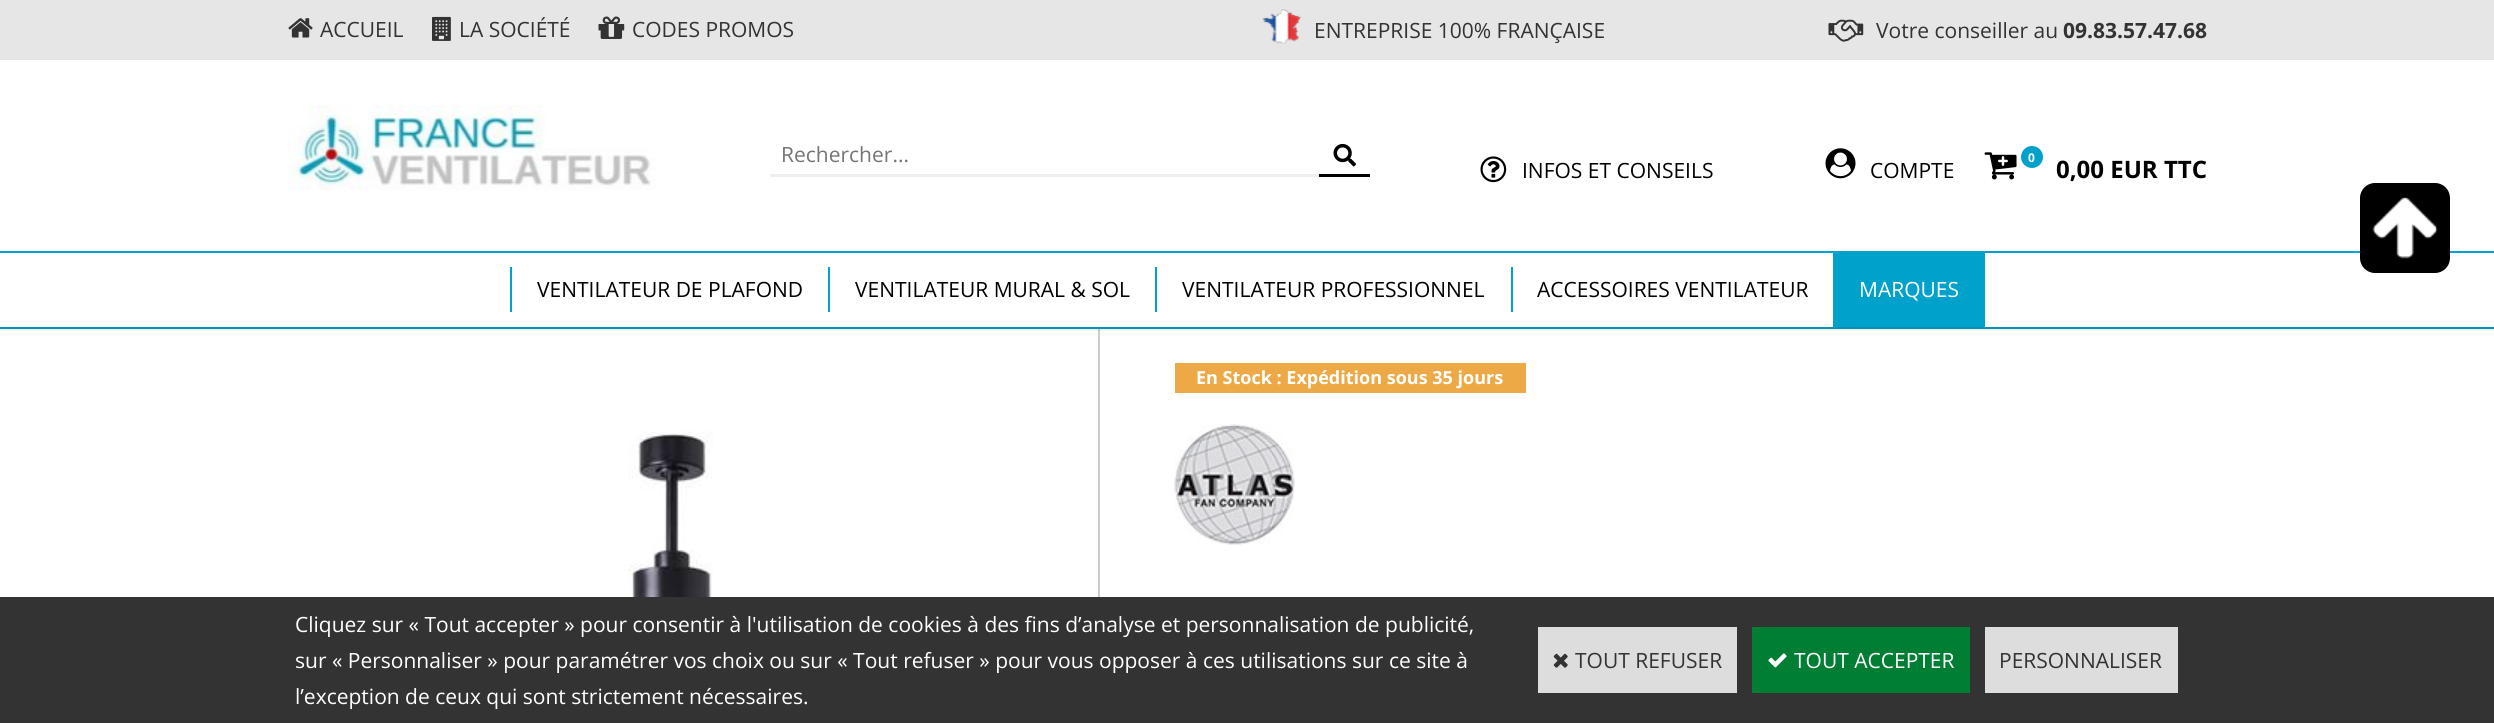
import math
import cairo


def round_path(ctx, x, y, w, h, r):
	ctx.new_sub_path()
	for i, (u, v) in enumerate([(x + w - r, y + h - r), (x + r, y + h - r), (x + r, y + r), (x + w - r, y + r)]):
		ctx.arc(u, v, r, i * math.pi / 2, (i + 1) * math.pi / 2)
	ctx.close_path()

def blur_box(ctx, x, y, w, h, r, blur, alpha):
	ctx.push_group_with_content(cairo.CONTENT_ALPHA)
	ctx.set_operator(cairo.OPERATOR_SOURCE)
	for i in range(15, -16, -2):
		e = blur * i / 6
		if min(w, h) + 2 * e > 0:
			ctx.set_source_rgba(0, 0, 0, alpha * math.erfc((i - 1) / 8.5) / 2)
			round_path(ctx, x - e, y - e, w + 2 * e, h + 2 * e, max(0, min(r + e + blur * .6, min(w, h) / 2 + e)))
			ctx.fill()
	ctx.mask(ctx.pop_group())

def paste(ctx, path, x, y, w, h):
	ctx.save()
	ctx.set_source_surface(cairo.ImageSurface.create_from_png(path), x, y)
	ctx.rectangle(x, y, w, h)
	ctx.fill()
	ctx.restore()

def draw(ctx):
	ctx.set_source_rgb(1, 1, 1)
	ctx.paint()
	ctx.set_source_rgb(0, 0.631, 0.796)
	ctx.rectangle(0, 327, 2494, 2)
	ctx.fill()
	ctx.set_source_rgb(0.902, 0.902, 0.902)
	ctx.rectangle(0, 0, 2494, 60)
	ctx.fill()
	paste(ctx, 'media/1.png', 288, 18, 25, 20)
	ctx.select_font_face('Open Sans')
	ctx.set_font_size(21)
	ctx.set_source_rgb(0.2, 0.2, 0.2)
	ctx.move_to(320, 37)
	ctx.show_text('ACCUEIL')
	paste(ctx, 'media/2.png', 432, 16, 19, 25)
	ctx.move_to(459, 37)
	ctx.show_text('LA SOCIÉTÉ')
	paste(ctx, 'media/3.png', 598, 16, 27, 23)
	ctx.move_to(632, 37)
	ctx.show_text('CODES PROMOS')
	paste(ctx, 'media/4.png', 1262, 9, 39, 35)
	ctx.move_to(1314, 38)
	ctx.show_text('ENTREPRISE 100% FRANÇAISE')
	paste(ctx, 'media/5.png', 1828, 19, 36, 23)
	ctx.move_to(1876, 38)
	ctx.show_text('Votre conseiller au')
	ctx.select_font_face('Open Sans', cairo.FONT_SLANT_NORMAL, cairo.FONT_WEIGHT_BOLD)
	ctx.move_to(2063, 38)
	ctx.show_text('09.83.57.47.68')
	paste(ctx, 'media/6.png', 288, 105, 369, 86)
	ctx.set_source_rgb(0.933, 0.933, 0.933)
	ctx.rectangle(770, 174, 549, 3)
	ctx.fill()
	ctx.select_font_face('Open Sans')
	ctx.set_source_rgb(0.459, 0.459, 0.459)
	ctx.move_to(781, 162)
	ctx.show_text('Rechercher...')
	ctx.set_source_rgb(0, 0, 0)
	ctx.rectangle(1319, 174, 51, 3)
	ctx.fill()
	paste(ctx, 'media/7.png', 1333, 143, 23, 24)
	paste(ctx, 'media/8.png', 1480, 156, 27, 27)
	ctx.move_to(1522, 178)
	ctx.show_text('INFOS ET CONSEILS')
	paste(ctx, 'media/9.png', 1825, 148, 31, 31)
	ctx.move_to(1870, 178)
	ctx.show_text('COMPTE')
	paste(ctx, 'media/10.png', 1984, 152, 33, 28)
	ctx.set_source_rgb(0, 0.631, 0.796)
	ctx.arc(2032, 157, 11, 0, 2 * math.pi)
	ctx.fill()
	ctx.select_font_face('Open Sans', cairo.FONT_SLANT_NORMAL, cairo.FONT_WEIGHT_BOLD)
	ctx.set_font_size(12)
	ctx.set_source_rgb(1, 1, 1)
	ctx.move_to(2028, 162)
	ctx.show_text('0')
	ctx.set_font_size(24)
	ctx.set_source_rgb(0, 0, 0)
	ctx.move_to(2056, 178)
	ctx.show_text('0,00 EUR TTC')
	ctx.set_source_rgb(0, 0.631, 0.796)
	ctx.rectangle(0, 251, 2494, 2)
	ctx.fill()
	ctx.set_source_rgb(0.8, 0.8, 0.8)
	ctx.rectangle(1098, 329, 2, 268)
	ctx.fill()
	ctx.save()
	ctx.rectangle(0, 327, 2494, 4)
	ctx.clip()
	ctx.set_source_rgb(0, 0, 0)
	blur_box(ctx, 0, 270, 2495, 60, 0, 1.5, 0.1)
	ctx.restore()
	ctx.set_source_rgb(0, 0.631, 0.796)
	ctx.rectangle(510, 267, 2, 45)
	ctx.fill()
	ctx.select_font_face('Open Sans')
	ctx.set_font_size(21)
	ctx.set_source_rgb(0, 0, 0)
	ctx.move_to(537, 297)
	ctx.show_text('VENTILATEUR DE PLAFOND')
	ctx.set_source_rgb(0, 0.631, 0.796)
	ctx.rectangle(828, 267, 2, 45)
	ctx.fill()
	ctx.set_source_rgb(0, 0, 0)
	ctx.move_to(855, 297)
	ctx.show_text('VENTILATEUR MURAL & SOL')
	ctx.set_source_rgb(0, 0.631, 0.796)
	ctx.rectangle(1155, 267, 2, 45)
	ctx.fill()
	ctx.set_source_rgb(0, 0, 0)
	ctx.move_to(1182, 297)
	ctx.show_text('VENTILATEUR PROFESSIONNEL')
	ctx.set_source_rgb(0, 0.631, 0.796)
	ctx.rectangle(1511, 267, 2, 45)
	ctx.fill()
	ctx.set_source_rgb(0, 0, 0)
	ctx.move_to(1537, 297)
	ctx.show_text('ACCESSOIRES VENTILATEUR')
	ctx.set_source_rgb(0, 0.631, 0.796)
	ctx.rectangle(1833, 253, 152, 74)
	ctx.fill()
	ctx.set_source_rgb(1, 1, 1)
	ctx.move_to(1859, 297)
	ctx.show_text('MARQUES')
	ctx.set_source_rgb(0, 0, 0)
	round_path(ctx, 2360, 183, 90, 90, 15)
	ctx.fill()
	paste(ctx, 'media/11.png', 2372, 197, 66, 62)
	ctx.set_source_rgb(0.933, 0.663, 0.278)
	ctx.rectangle(1175, 363, 351, 30)
	ctx.fill()
	ctx.select_font_face('Open Sans', cairo.FONT_SLANT_NORMAL, cairo.FONT_WEIGHT_BOLD)
	ctx.set_font_size(18)
	ctx.set_source_rgb(1, 1, 1)
	ctx.move_to(1196, 384)
	ctx.show_text('En Stock : Expédition sous 35 jours')
	paste(ctx, 'media/12.png', 1174, 424, 121, 121)
	paste(ctx, 'media/13.png', 436, 431, 445, 166)
	ctx.set_source_rgb(0.2, 0.2, 0.2)
	ctx.rectangle(0, 597, 2494, 126)
	ctx.fill()
	ctx.select_font_face('Open Sans')
	ctx.set_font_size(21)
	ctx.set_source_rgb(1, 1, 1)
	for x, y, s in [
		(295, 632, 'Cliquez sur « Tout accepter » pour consentir à l\'utilisation de cookies à des fins d’analyse et personnalisation de publicité,'),
		(295, 668, 'sur « Personnaliser » pour paramétrer vos choix ou sur « Tout refuser » pour vous opposer à ces utilisations sur ce site à'),
		(295, 704, 'l’exception de ceux qui sont strictement nécessaires.'),
	]:
		ctx.move_to(x, y)
		ctx.show_text(s)
	ctx.set_source_rgb(0.867, 0.867, 0.867)
	ctx.rectangle(1538, 627, 199, 66)
	ctx.fill()
	paste(ctx, 'media/14.png', 1553, 653, 15, 15)
	ctx.set_source_rgb(0.2, 0.2, 0.2)
	ctx.move_to(1575, 668)
	ctx.show_text('TOUT REFUSER')
	ctx.set_source_rgb(0, 0.494, 0.2)
	ctx.rectangle(1752, 627, 218, 66)
	ctx.fill()
	paste(ctx, 'media/15.png', 1768, 653, 19, 15)
	ctx.set_source_rgb(1, 1, 1)
	ctx.move_to(1794, 668)
	ctx.show_text('TOUT ACCEPTER')
	ctx.set_source_rgb(0.867, 0.867, 0.867)
	ctx.rectangle(1985, 627, 193, 66)
	ctx.fill()
	ctx.set_source_rgb(0.2, 0.2, 0.2)
	ctx.move_to(1999, 668)
	ctx.show_text('PERSONNALISER')


surface = cairo.ImageSurface(cairo.FORMAT_RGB24, 2494, 723)
ctx = cairo.Context(surface)
options = cairo.FontOptions()
options.set_hint_metrics(cairo.HINT_METRICS_OFF)
options.set_hint_style(cairo.HINT_STYLE_NONE)
ctx.set_font_options(options)
ctx.set_miter_limit(4)
draw(ctx)
surface.write_to_png('image.png')
